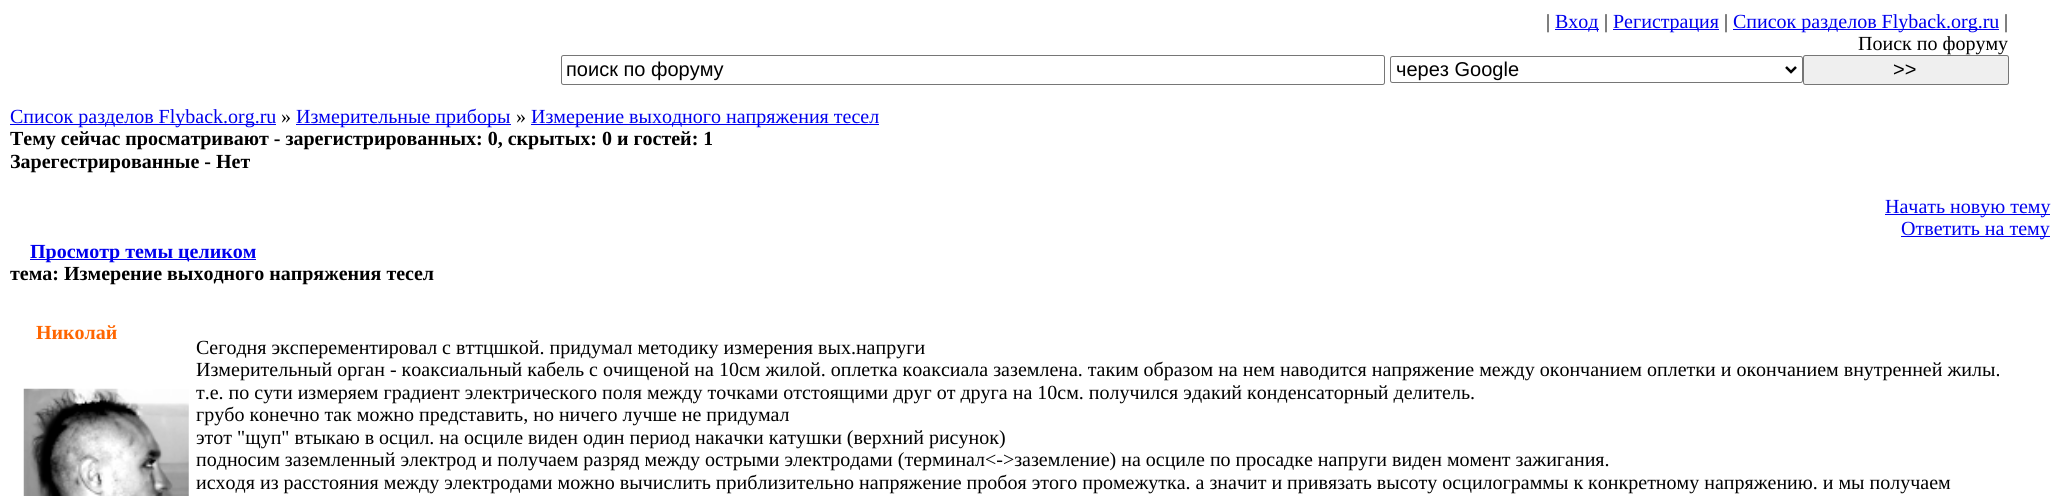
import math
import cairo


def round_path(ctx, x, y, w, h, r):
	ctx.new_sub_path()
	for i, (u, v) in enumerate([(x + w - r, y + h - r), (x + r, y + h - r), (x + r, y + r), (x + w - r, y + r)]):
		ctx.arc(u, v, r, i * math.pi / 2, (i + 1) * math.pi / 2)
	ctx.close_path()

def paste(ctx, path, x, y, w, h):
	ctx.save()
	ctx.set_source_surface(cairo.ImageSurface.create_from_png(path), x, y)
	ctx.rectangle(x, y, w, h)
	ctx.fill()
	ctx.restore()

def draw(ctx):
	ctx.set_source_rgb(1, 1, 1)
	ctx.paint()
	ctx.select_font_face('Liberation Serif')
	ctx.set_font_size(20)
	ctx.set_source_rgb(0, 0, 0)
	ctx.move_to(1546, 28)
	ctx.show_text('|')
	ctx.set_source_rgb(0, 0, 0.933)
	ctx.rectangle(1555, 29, 44, 1)
	ctx.fill()
	ctx.move_to(1555, 28)
	ctx.show_text('Вход')
	ctx.set_source_rgb(0, 0, 0)
	ctx.move_to(1604, 28)
	ctx.show_text('|')
	ctx.set_source_rgb(0, 0, 0.933)
	ctx.rectangle(1613, 29, 106, 1)
	ctx.fill()
	ctx.move_to(1613, 28)
	ctx.show_text('Регистрация')
	ctx.set_source_rgb(0, 0, 0)
	ctx.move_to(1724, 28)
	ctx.show_text('|')
	ctx.set_source_rgb(0, 0, 0.933)
	ctx.rectangle(1733, 29, 266, 1)
	ctx.fill()
	ctx.move_to(1733, 28)
	ctx.show_text('Список разделов Flyback.org.ru')
	ctx.set_source_rgb(0, 0, 0)
	ctx.move_to(2004, 28)
	ctx.show_text('|')
	ctx.move_to(1858, 50)
	ctx.show_text('Поиск по форуму')
	round_path(ctx, 561.5, 55.5, 823, 29, 2)
	ctx.set_source_rgb(0.463, 0.463, 0.463)
	ctx.set_line_width(1)
	ctx.stroke()
	ctx.select_font_face('Liberation Sans')
	ctx.set_source_rgb(0, 0, 0)
	ctx.move_to(566, 76)
	ctx.show_text('поиск по форуму')
	round_path(ctx, 1390.5, 56.5, 412, 26, 2)
	ctx.set_source_rgb(0.463, 0.463, 0.463)
	ctx.stroke()
	ctx.new_path()
	ctx.move_to(1786, 67)
	ctx.line_to(1791, 72)
	ctx.line_to(1796, 67)
	ctx.set_source_rgb(0, 0, 0)
	ctx.set_line_width(2.5)
	ctx.stroke()
	ctx.move_to(1396, 76)
	ctx.show_text('через Google')
	ctx.set_source_rgb(0.937, 0.937, 0.937)
	round_path(ctx, 1803.5, 55.5, 205, 29, 2)
	ctx.fill_preserve()
	ctx.set_source_rgb(0.463, 0.463, 0.463)
	ctx.set_line_width(1)
	ctx.stroke()
	ctx.set_source_rgb(0, 0, 0)
	ctx.move_to(1893, 76)
	ctx.show_text('>>')
	ctx.set_source_rgb(0, 0, 0.933)
	ctx.rectangle(10, 124, 266, 1)
	ctx.fill()
	ctx.select_font_face('Liberation Serif')
	ctx.move_to(10, 123)
	ctx.show_text('Список разделов Flyback.org.ru')
	ctx.set_source_rgb(0, 0, 0)
	ctx.move_to(281, 123)
	ctx.show_text('»')
	ctx.set_source_rgb(0, 0, 0.933)
	ctx.rectangle(296, 124, 215, 1)
	ctx.fill()
	ctx.move_to(296, 123)
	ctx.show_text('Измерительные приборы')
	ctx.set_source_rgb(0, 0, 0)
	ctx.move_to(516, 123)
	ctx.show_text('»')
	ctx.set_source_rgb(0, 0, 0.933)
	ctx.rectangle(531, 124, 348, 1)
	ctx.fill()
	ctx.move_to(531, 123)
	ctx.show_text('Измерение выходного напряжения тесел')
	ctx.select_font_face('Liberation Serif', cairo.FONT_SLANT_NORMAL, cairo.FONT_WEIGHT_BOLD)
	ctx.set_source_rgb(0, 0, 0)
	ctx.move_to(10, 145)
	ctx.show_text('Тему сейчас просматривают - зарегистрированных: 0, скрытых: 0 и гостей: 1')
	ctx.move_to(10, 168)
	ctx.show_text('Зарегестрированные - Нет')
	ctx.set_source_rgb(0, 0, 0.933)
	ctx.rectangle(1885, 214, 165, 1)
	ctx.fill()
	ctx.select_font_face('Liberation Serif')
	ctx.move_to(1885, 213)
	ctx.show_text('Начать новую тему')
	ctx.rectangle(1901, 236, 149, 1)
	ctx.fill()
	ctx.move_to(1901, 235)
	ctx.show_text('Ответить на тему')
	ctx.rectangle(30, 259, 226, 1)
	ctx.fill()
	ctx.select_font_face('Liberation Serif', cairo.FONT_SLANT_NORMAL, cairo.FONT_WEIGHT_BOLD)
	ctx.move_to(30, 258)
	ctx.show_text('Просмотр темы целиком')
	ctx.set_source_rgb(0, 0, 0)
	ctx.move_to(10, 280)
	ctx.show_text('тема: Измерение выходного напряжения тесел')
	ctx.set_source_rgb(1, 0.4, 0)
	ctx.move_to(36, 339)
	ctx.show_text('Николай')
	paste(ctx, 'media/1.png', 23, 388, 166, 108)
	ctx.select_font_face('Liberation Serif')
	ctx.set_source_rgb(0, 0, 0)
	for x, y, s in [
		(196, 354, 'Сегодня эксперементировал с вттцшкой. придумал методику измерения вых.напруги'),
		(196, 376, 'Измерительный орган - коаксиальный кабель с очищеной на 10см жилой. оплетка коаксиала заземлена. таким образом на нем наводится напряжение между окончанием оплетки и окончанием внутренней жилы.'),
		(196, 399, 'т.е. по сути измеряем градиент электрического поля между точками отстоящими друг от друга на 10см. получился эдакий конденсаторный делитель.'),
		(196, 421, 'грубо конечно так можно представить, но ничего лучше не придумал'),
		(196, 444, 'этот "щуп" втыкаю в осцил. на осциле виден один период накачки катушки (верхний рисунок)'),
		(196, 466, 'подносим заземленный электрод и получаем разряд между острыми электродами (терминал<->заземление) на осциле по просадке напруги виден момент зажигания.'),
		(196, 489, 'исходя из расстояния между электродами можно вычислить приблизительно напряжение пробоя этого промежутка. а значит и привязать высоту осцилограммы к конкретному напряжению. и мы получаем'),
	]:
		ctx.move_to(x, y)
		ctx.show_text(s)


surface = cairo.ImageSurface(cairo.FORMAT_RGB24, 2059, 496)
ctx = cairo.Context(surface)
options = cairo.FontOptions()
options.set_hint_metrics(cairo.HINT_METRICS_OFF)
options.set_hint_style(cairo.HINT_STYLE_NONE)
ctx.set_font_options(options)
ctx.set_miter_limit(4)
draw(ctx)
surface.write_to_png('image.png')
